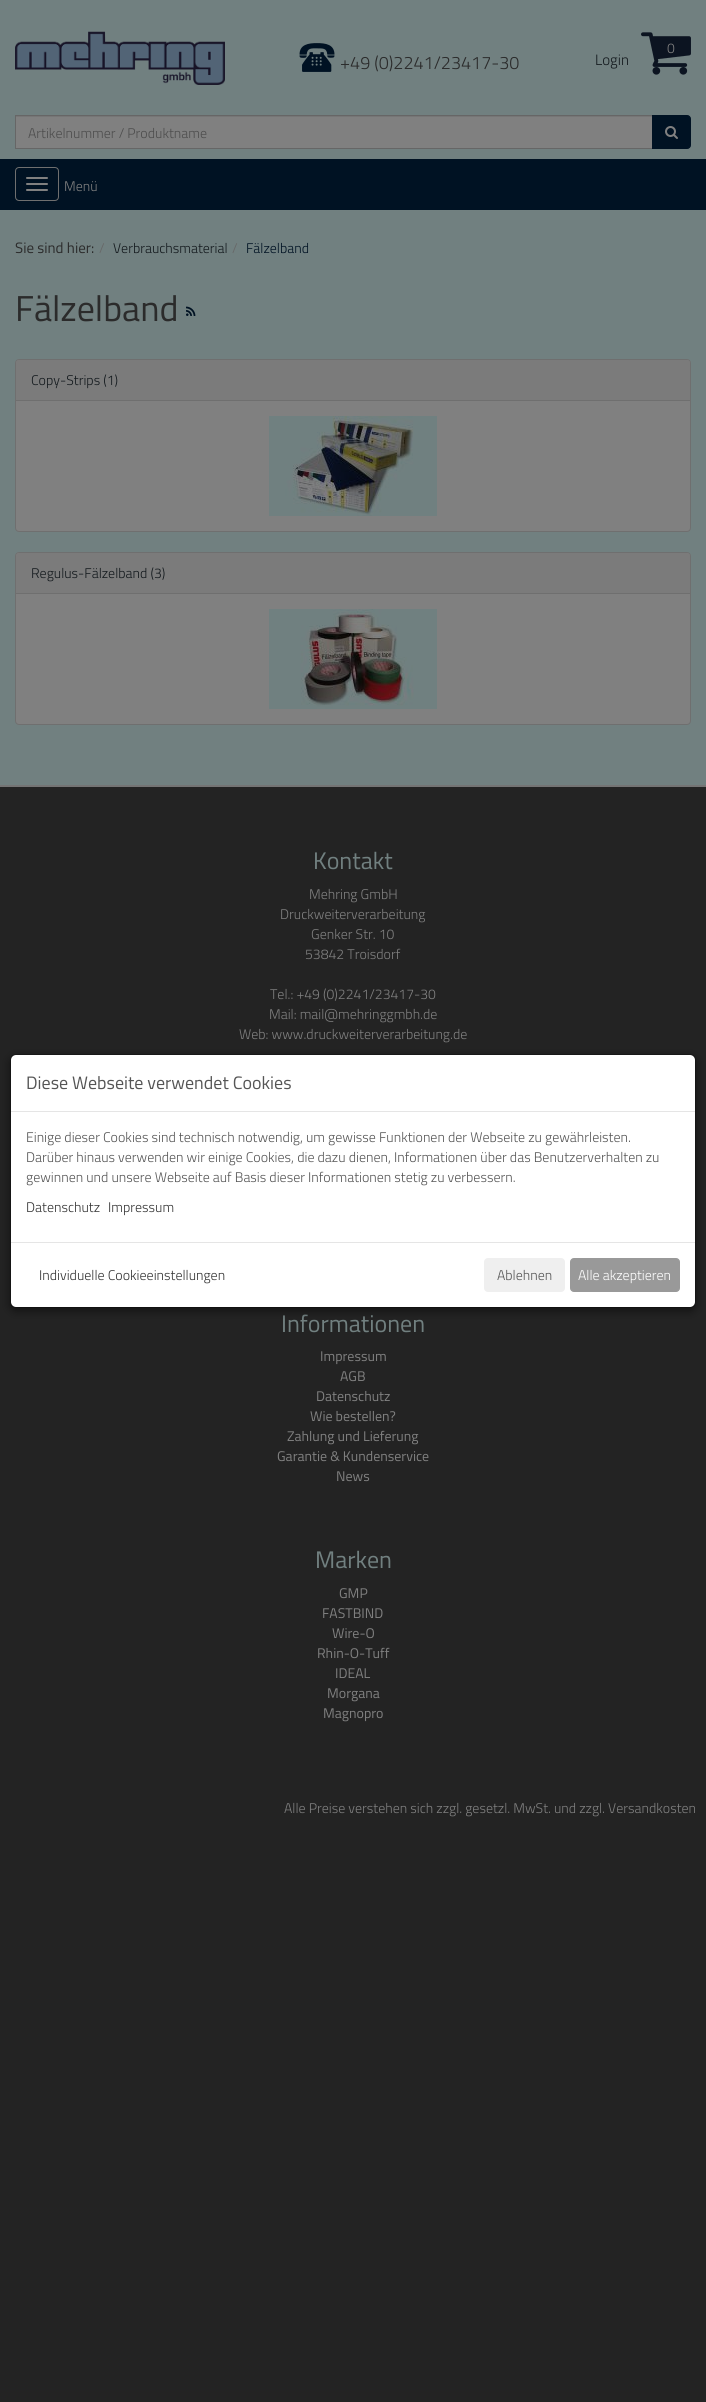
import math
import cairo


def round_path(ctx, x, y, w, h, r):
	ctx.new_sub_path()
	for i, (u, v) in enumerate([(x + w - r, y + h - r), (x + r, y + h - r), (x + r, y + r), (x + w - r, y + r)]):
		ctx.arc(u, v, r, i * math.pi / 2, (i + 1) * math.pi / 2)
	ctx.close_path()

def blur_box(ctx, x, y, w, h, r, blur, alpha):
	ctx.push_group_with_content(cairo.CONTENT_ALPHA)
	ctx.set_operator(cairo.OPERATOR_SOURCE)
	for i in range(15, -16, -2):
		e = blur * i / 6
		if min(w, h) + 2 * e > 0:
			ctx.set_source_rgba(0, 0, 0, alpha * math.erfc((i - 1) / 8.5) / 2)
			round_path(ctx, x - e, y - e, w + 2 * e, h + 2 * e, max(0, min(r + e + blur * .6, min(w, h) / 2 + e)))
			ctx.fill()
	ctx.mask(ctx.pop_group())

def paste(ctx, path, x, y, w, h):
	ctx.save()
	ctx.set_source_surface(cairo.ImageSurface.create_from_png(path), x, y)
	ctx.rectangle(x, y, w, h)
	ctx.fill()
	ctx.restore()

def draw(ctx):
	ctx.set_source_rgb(0.137, 0.137, 0.137)
	ctx.paint()
	ctx.set_source_rgb(0.443, 0.502, 0.502)
	ctx.rectangle(0, 0, 706, 785)
	ctx.fill()
	paste(ctx, 'media/1.png', 15, 31, 210, 54)
	paste(ctx, 'media/2.png', 641, 32, 50, 43)
	ctx.select_font_face('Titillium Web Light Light')
	ctx.set_font_size(14)
	ctx.set_source_rgb(0.502, 0.502, 0.502)
	ctx.move_to(667, 53)
	ctx.show_text('0')
	paste(ctx, 'media/3.png', 299, 43, 36, 29)
	ctx.set_font_size(18)
	ctx.set_source_rgb(0.169, 0.169, 0.169)
	ctx.move_to(340, 69)
	ctx.show_text('+49 (0)2241/23417-30')
	ctx.set_font_size(15)
	ctx.set_source_rgb(0.082, 0.102, 0.118)
	ctx.move_to(595, 65)
	ctx.show_text('Login')
	ctx.set_source_rgb(0.502, 0.502, 0.502)
	ctx.rectangle(16, 117, 636, 31)
	ctx.fill()
	ctx.set_source_rgb(0.463, 0.463, 0.463)
	ctx.rectangle(16, 116, 636, 1)
	ctx.fill()
	ctx.rectangle(15.5, 115.5, 637, 33)
	ctx.set_source_rgb(0.4, 0.4, 0.4)
	ctx.set_line_width(1)
	ctx.stroke()
	ctx.set_font_size(14)
	ctx.set_source_rgb(0.302, 0.302, 0.302)
	ctx.move_to(28, 138)
	ctx.show_text('Artikelnummer / Produktname')
	ctx.set_source_rgb(0, 0.071, 0.137)
	ctx.new_path()
	ctx.move_to(652.5, 115.5)
	ctx.line_to(687, 115.5)
	ctx.curve_to(689, 115.5, 690.5, 117, 690.5, 119)
	ctx.line_to(690.5, 145)
	ctx.curve_to(690.5, 147, 689, 148.5, 687, 148.5)
	ctx.line_to(652.5, 148.5)
	ctx.close_path()
	ctx.fill_preserve()
	ctx.stroke()
	paste(ctx, 'media/4.png', 665, 126, 13, 13)
	ctx.rectangle(0, 159, 706, 51)
	ctx.fill()
	round_path(ctx, 15.5, 167.5, 43, 33, 3.5)
	ctx.set_source_rgb(0.435, 0.435, 0.435)
	ctx.stroke()
	ctx.set_source_rgb(0.502, 0.502, 0.502)
	round_path(ctx, 26, 177, 22, 2, 1)
	ctx.fill()
	round_path(ctx, 26, 183, 22, 2, 1)
	ctx.fill()
	round_path(ctx, 26, 189, 22, 2, 1)
	ctx.fill()
	ctx.move_to(64, 191)
	ctx.show_text('Menü')
	ctx.select_font_face('Titillium Web')
	ctx.set_font_size(15)
	ctx.set_source_rgb(0.169, 0.169, 0.169)
	ctx.move_to(15, 253)
	ctx.show_text('Sie sind hier:')
	ctx.select_font_face('Titillium Web Light Light')
	ctx.set_font_size(14)
	ctx.set_source_rgb(0.4, 0.4, 0.4)
	ctx.move_to(99, 253)
	ctx.show_text('/')
	ctx.set_source_rgb(0.082, 0.102, 0.118)
	ctx.move_to(113, 253)
	ctx.show_text('Verbrauchsmaterial')
	ctx.set_source_rgb(0.4, 0.4, 0.4)
	ctx.move_to(232, 253)
	ctx.show_text('/')
	ctx.set_source_rgb(0, 0.071, 0.137)
	ctx.move_to(246, 253)
	ctx.show_text('Fälzelband')
	ctx.select_font_face('Titillium Web')
	ctx.set_font_size(36)
	ctx.set_source_rgb(0.169, 0.169, 0.169)
	ctx.move_to(15, 321)
	ctx.show_text('Fälzelband')
	paste(ctx, 'media/5.png', 186, 306, 10, 10)
	ctx.set_source_rgb(0.502, 0.502, 0.502)
	round_path(ctx, 15.5, 359.5, 675, 172, 3.5)
	ctx.fill_preserve()
	ctx.set_source_rgb(0.435, 0.435, 0.435)
	ctx.stroke()
	ctx.set_source_rgb(0.482, 0.482, 0.482)
	ctx.new_path()
	ctx.move_to(19, 360)
	ctx.line_to(687, 360)
	ctx.curve_to(688.5, 360, 690, 361.5, 690, 363)
	ctx.line_to(690, 401)
	ctx.line_to(16, 401)
	ctx.line_to(16, 363)
	ctx.curve_to(16, 361.5, 17.5, 360, 19, 360)
	ctx.close_path()
	ctx.fill()
	ctx.set_source_rgb(0.435, 0.435, 0.435)
	ctx.rectangle(16, 400, 674, 1)
	ctx.fill()
	ctx.select_font_face('Titillium Web Light Light')
	ctx.set_font_size(14)
	ctx.set_source_rgb(0.082, 0.102, 0.118)
	ctx.move_to(31, 385)
	ctx.show_text('Copy-Strips (1)')
	paste(ctx, 'media/6.png', 269, 416, 168, 100)
	ctx.set_source_rgb(0.502, 0.502, 0.502)
	round_path(ctx, 15.5, 552.5, 675, 172, 3.5)
	ctx.fill_preserve()
	ctx.set_source_rgb(0.435, 0.435, 0.435)
	ctx.stroke()
	ctx.set_source_rgb(0.482, 0.482, 0.482)
	ctx.new_path()
	ctx.move_to(19, 553)
	ctx.line_to(687, 553)
	ctx.curve_to(688.5, 553, 690, 554.5, 690, 556)
	ctx.line_to(690, 594)
	ctx.line_to(16, 594)
	ctx.line_to(16, 556)
	ctx.curve_to(16, 554.5, 17.5, 553, 19, 553)
	ctx.close_path()
	ctx.fill()
	ctx.set_source_rgb(0.435, 0.435, 0.435)
	ctx.rectangle(16, 593, 674, 1)
	ctx.fill()
	ctx.set_source_rgb(0.082, 0.102, 0.118)
	ctx.move_to(31, 578)
	ctx.show_text('Regulus-Fälzelband (3)')
	paste(ctx, 'media/7.png', 269, 609, 168, 100)
	ctx.set_source_rgb(0.455, 0.455, 0.455)
	ctx.rectangle(0, 785, 706, 2)
	ctx.fill()
	ctx.select_font_face('Titillium Web')
	ctx.set_font_size(24)
	ctx.set_source_rgb(0.443, 0.502, 0.502)
	ctx.move_to(313, 869)
	ctx.show_text('Kontakt')
	ctx.select_font_face('Titillium Web Light Light')
	ctx.set_font_size(14)
	ctx.set_source_rgb(0.502, 0.502, 0.502)
	for x, y, s in [
		(309, 899, 'Mehring GmbH'),
		(280, 919, 'Druckweiterverarbeitung'),
		(311, 939, 'Genker Str. 10'),
		(305, 959, '53842 Troisdorf'),
		(270, 999, 'Tel.: +49 (0)2241/23417-30'),
		(269, 1019, 'Mail: mail@mehringgmbh.de'),
		(239, 1039, 'Web: www.druckweiterverarbeitung.de'),
	]:
		ctx.move_to(x, y)
		ctx.show_text(s)
	ctx.select_font_face('Titillium Web')
	ctx.set_font_size(24)
	ctx.set_source_rgb(0.443, 0.502, 0.502)
	ctx.move_to(281, 1332)
	ctx.show_text('Informationen')
	ctx.set_font_size(14)
	ctx.set_source_rgb(0.502, 0.502, 0.502)
	for x, y, s in [
		(320, 1361, 'Impressum'),
		(340, 1381, 'AGB'),
		(316, 1401, 'Datenschutz'),
		(310, 1421, 'Wie bestellen?'),
		(287, 1441, 'Zahlung und Lieferung'),
		(277, 1461, 'Garantie & Kundenservice'),
		(336, 1481, 'News'),
	]:
		ctx.move_to(x, y)
		ctx.show_text(s)
	ctx.set_font_size(24)
	ctx.set_source_rgb(0.443, 0.502, 0.502)
	ctx.move_to(315, 1568)
	ctx.show_text('Marken')
	ctx.set_font_size(14)
	ctx.set_source_rgb(0.502, 0.502, 0.502)
	for x, y, s in [
		(339, 1598, 'GMP'),
		(322, 1618, 'FASTBIND'),
		(332, 1638, 'Wire-O'),
		(317, 1658, 'Rhin-O-Tuff'),
		(335, 1678, 'IDEAL'),
		(327, 1698, 'Morgana'),
		(323, 1718, 'Magnopro'),
	]:
		ctx.move_to(x, y)
		ctx.show_text(s)
	ctx.select_font_face('Titillium Web Light Light')
	ctx.move_to(284, 1813)
	ctx.show_text('Alle Preise verstehen sich zzgl. gesetzl. MwSt. und zzgl. Versandkosten')
	ctx.set_source_rgb(0, 0, 0)
	blur_box(ctx, 10, 1057, 686, 254, 6, 4.5, 0.5)
	ctx.set_source_rgb(1, 1, 1)
	round_path(ctx, 11, 1055, 684, 252, 5)
	ctx.fill()
	round_path(ctx, 10.5, 1054.5, 685, 253, 5.5)
	ctx.set_source_rgba(0, 0, 0, 0.2)
	ctx.stroke()
	ctx.set_source_rgb(0.898, 0.898, 0.898)
	ctx.rectangle(11, 1111, 684, 1)
	ctx.fill()
	ctx.select_font_face('Titillium Web')
	ctx.set_font_size(18)
	ctx.set_source_rgb(0.333, 0.333, 0.333)
	ctx.move_to(26, 1089)
	ctx.show_text('Diese Webseite verwendet Cookies')
	ctx.select_font_face('Titillium Web Light Light')
	ctx.set_font_size(14)
	for x, y, s in [
		(26, 1142, 'Einige dieser Cookies sind technisch notwendig, um gewisse Funktionen der Webseite zu gewährleisten.'),
		(26, 1162, 'Darüber hinaus verwenden wir einige Cookies, die dazu dienen, Informationen über das Benutzerverhalten zu'),
		(26, 1182, 'gewinnen und unsere Webseite auf Basis dieser Informationen stetig zu verbessern.'),
	]:
		ctx.move_to(x, y)
		ctx.show_text(s)
	ctx.set_source_rgb(0.2, 0.2, 0.2)
	ctx.move_to(26, 1212)
	ctx.show_text('Datenschutz')
	ctx.move_to(108, 1212)
	ctx.show_text('Impressum')
	ctx.set_source_rgb(0.898, 0.898, 0.898)
	ctx.rectangle(11, 1242, 684, 1)
	ctx.fill()
	ctx.set_source_rgb(0.2, 0.2, 0.2)
	ctx.move_to(39, 1280)
	ctx.show_text('Individuelle Cookieeinstellungen')
	ctx.set_source_rgb(0.937, 0.937, 0.937)
	round_path(ctx, 484, 1258, 81, 34, 4)
	ctx.fill()
	ctx.set_source_rgb(0.333, 0.333, 0.333)
	ctx.move_to(497, 1280)
	ctx.show_text('Ablehnen')
	ctx.set_source_rgb(0.6, 0.6, 0.6)
	round_path(ctx, 570.5, 1258.5, 109, 33, 3.5)
	ctx.fill_preserve()
	ctx.stroke()
	ctx.set_source_rgb(1, 1, 1)
	ctx.move_to(578, 1280)
	ctx.show_text('Alle akzeptieren')


surface = cairo.ImageSurface(cairo.FORMAT_RGB24, 706, 2402)
ctx = cairo.Context(surface)
options = cairo.FontOptions()
options.set_hint_metrics(cairo.HINT_METRICS_OFF)
options.set_hint_style(cairo.HINT_STYLE_NONE)
ctx.set_font_options(options)
ctx.set_miter_limit(4)
draw(ctx)
surface.write_to_png('image.png')
